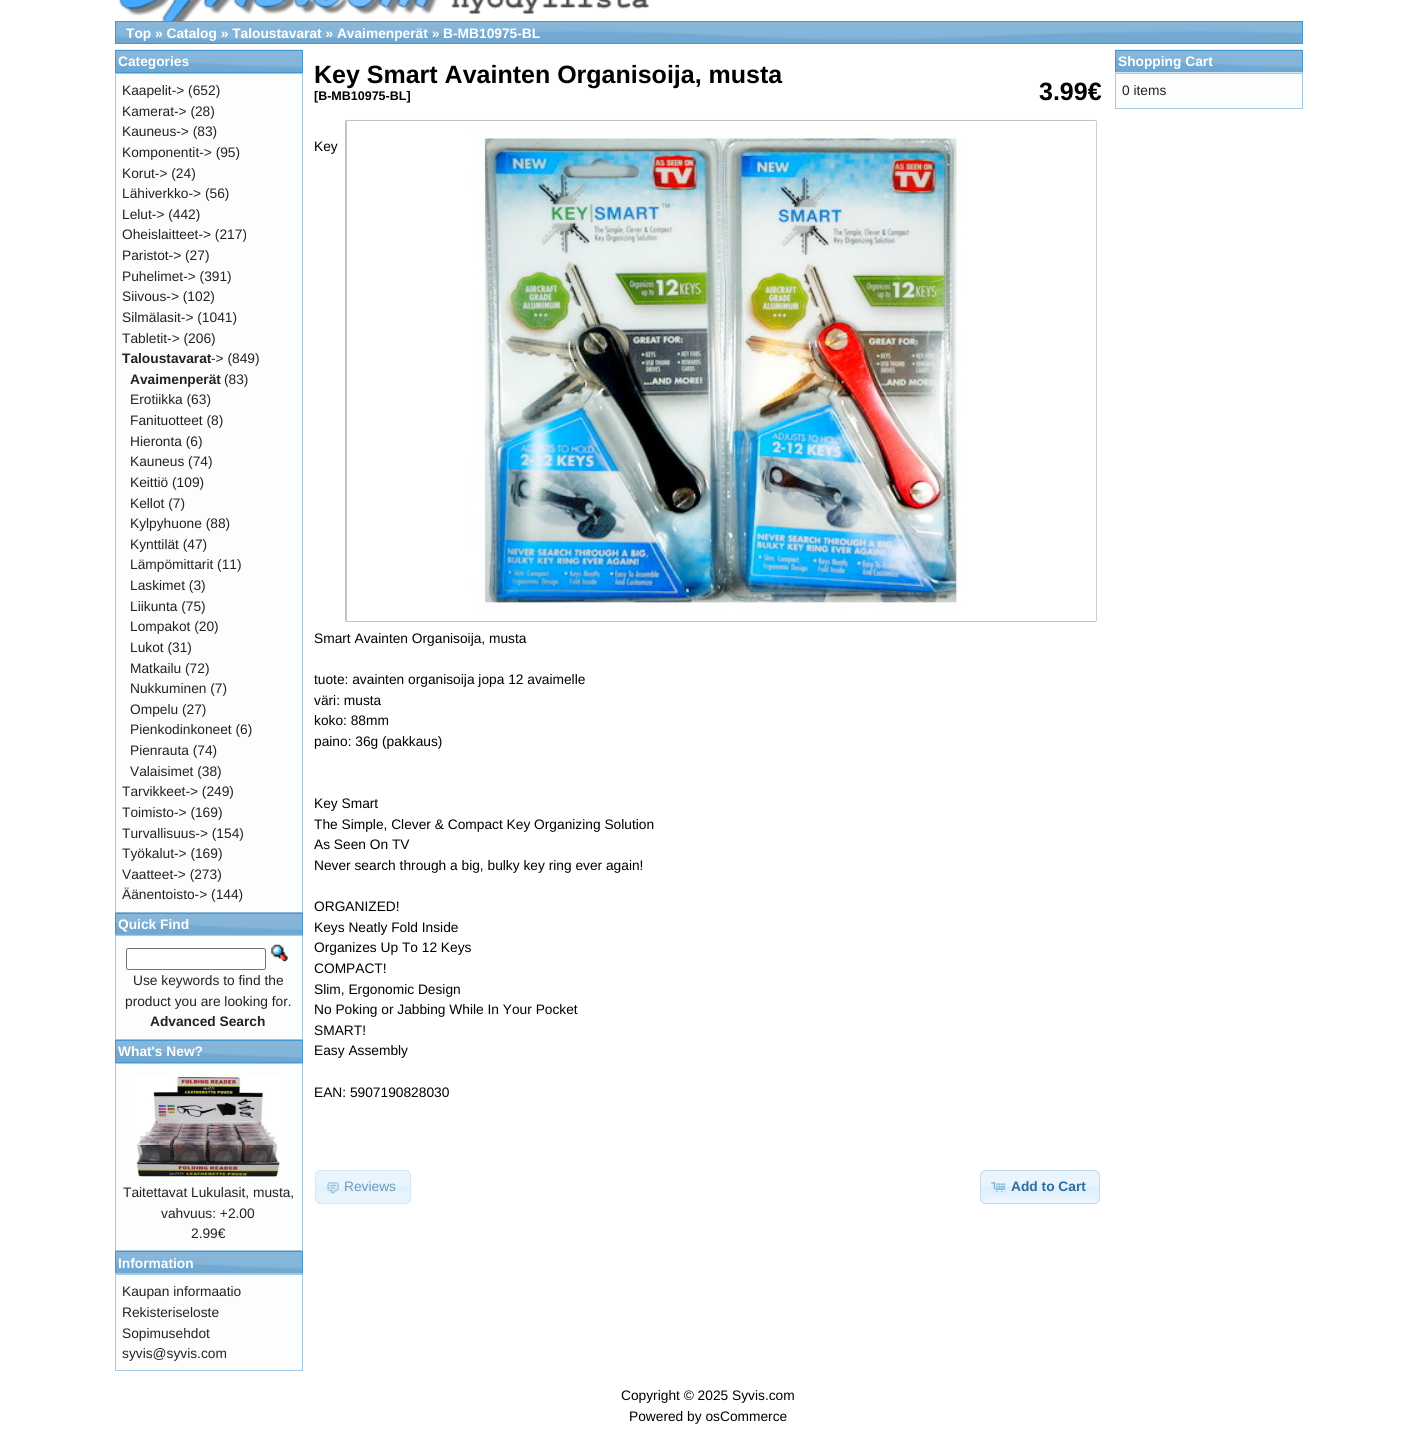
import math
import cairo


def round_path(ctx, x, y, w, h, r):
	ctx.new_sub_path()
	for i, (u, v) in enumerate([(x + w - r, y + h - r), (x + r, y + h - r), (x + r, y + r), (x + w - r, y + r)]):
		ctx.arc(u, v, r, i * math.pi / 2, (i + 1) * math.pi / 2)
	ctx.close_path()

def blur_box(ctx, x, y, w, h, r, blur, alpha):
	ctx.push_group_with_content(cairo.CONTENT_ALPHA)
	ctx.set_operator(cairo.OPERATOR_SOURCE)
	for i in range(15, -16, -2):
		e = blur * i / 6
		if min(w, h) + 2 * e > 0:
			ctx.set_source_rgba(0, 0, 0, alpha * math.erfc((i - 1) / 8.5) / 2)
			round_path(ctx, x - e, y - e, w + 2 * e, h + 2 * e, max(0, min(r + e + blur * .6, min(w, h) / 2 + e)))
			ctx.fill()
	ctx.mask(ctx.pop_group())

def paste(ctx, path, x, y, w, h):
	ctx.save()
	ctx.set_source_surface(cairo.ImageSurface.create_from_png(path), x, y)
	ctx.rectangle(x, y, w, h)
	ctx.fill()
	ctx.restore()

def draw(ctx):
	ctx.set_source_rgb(1, 1, 1)
	ctx.paint()
	paste(ctx, 'media/1.png', 118, 0, 531, 21)
	paste(ctx, 'media/2.png', 116, 22, 1186, 21)
	ctx.rectangle(115.5, 21.5, 1187, 22)
	ctx.set_source_rgb(0.259, 0.592, 0.843)
	ctx.set_line_width(1)
	ctx.stroke()
	ctx.select_font_face('Liberation Sans', cairo.FONT_SLANT_NORMAL, cairo.FONT_WEIGHT_BOLD)
	ctx.set_font_size(13.75)
	ctx.set_source_rgb(1, 1, 1)
	ctx.move_to(126, 38)
	ctx.show_text('Top » Catalog » Taloustavarat » Avaimenperät » B-MB10975-BL')
	paste(ctx, 'media/3.png', 115, 49, 188, 23)
	ctx.rectangle(115.5, 50.5, 187, 22)
	ctx.set_source_rgb(0.259, 0.592, 0.843)
	ctx.stroke()
	ctx.set_source_rgb(1, 1, 1)
	ctx.move_to(118, 66)
	ctx.show_text('Categories')
	ctx.set_source_rgb(0.988, 0.992, 0.992)
	ctx.rectangle(115.5, 73.5, 187, 839)
	ctx.fill_preserve()
	ctx.set_source_rgb(0.651, 0.788, 0.886)
	ctx.stroke()
	ctx.select_font_face('Liberation Sans')
	ctx.set_source_rgb(0.133, 0.133, 0.133)
	for x, y, s in [
		(122, 95, 'Kaapelit-> (652)'),
		(122, 116, 'Kamerat-> (28)'),
		(122, 136, 'Kauneus-> (83)'),
		(122, 157, 'Komponentit-> (95)'),
		(122, 178, 'Korut-> (24)'),
		(122, 198, 'Lähiverkko-> (56)'),
		(122, 219, 'Lelut-> (442)'),
		(122, 239, 'Oheislaitteet-> (217)'),
		(122, 260, 'Paristot-> (27)'),
		(122, 281, 'Puhelimet-> (391)'),
		(122, 301, 'Siivous-> (102)'),
		(122, 322, 'Silmälasit-> (1041)'),
		(122, 343, 'Tabletit-> (206)'),
	]:
		ctx.move_to(x, y)
		ctx.show_text(s)
	ctx.select_font_face('Liberation Sans', cairo.FONT_SLANT_NORMAL, cairo.FONT_WEIGHT_BOLD)
	ctx.move_to(122, 363)
	ctx.show_text('Taloustavarat')
	ctx.select_font_face('Liberation Sans')
	ctx.move_to(211, 363)
	ctx.show_text('-> (849)')
	ctx.select_font_face('Liberation Sans', cairo.FONT_SLANT_NORMAL, cairo.FONT_WEIGHT_BOLD)
	ctx.move_to(130, 384)
	ctx.show_text('Avaimenperät')
	ctx.select_font_face('Liberation Sans')
	for x, y, s in [
		(224, 384, '(83)'),
		(130, 404, 'Erotiikka (63)'),
		(130, 425, 'Fanituotteet (8)'),
		(130, 446, 'Hieronta (6)'),
		(130, 466, 'Kauneus (74)'),
		(130, 487, 'Keittiö (109)'),
		(130, 508, 'Kellot (7)'),
		(130, 528, 'Kylpyhuone (88)'),
		(130, 549, 'Kynttilät (47)'),
		(130, 569, 'Lämpömittarit (11)'),
		(130, 590, 'Laskimet (3)'),
		(130, 611, 'Liikunta (75)'),
		(130, 631, 'Lompakot (20)'),
		(130, 652, 'Lukot (31)'),
		(130, 673, 'Matkailu (72)'),
		(130, 693, 'Nukkuminen (7)'),
		(130, 714, 'Ompelu (27)'),
		(130, 734, 'Pienkodinkoneet (6)'),
		(130, 755, 'Pienrauta (74)'),
		(130, 776, 'Valaisimet (38)'),
		(122, 796, 'Tarvikkeet-> (249)'),
		(122, 817, 'Toimisto-> (169)'),
		(122, 838, 'Turvallisuus-> (154)'),
		(122, 858, 'Työkalut-> (169)'),
		(122, 879, 'Vaatteet-> (273)'),
		(122, 899, 'Äänentoisto-> (144)'),
	]:
		ctx.move_to(x, y)
		ctx.show_text(s)
	paste(ctx, 'media/4.png', 115, 912, 188, 22)
	ctx.rectangle(115.5, 913.5, 187, 21)
	ctx.set_source_rgb(0.259, 0.592, 0.843)
	ctx.stroke()
	ctx.select_font_face('Liberation Sans', cairo.FONT_SLANT_NORMAL, cairo.FONT_WEIGHT_BOLD)
	ctx.set_source_rgb(1, 1, 1)
	ctx.move_to(118, 929)
	ctx.show_text('Quick Find')
	ctx.set_source_rgb(0.988, 0.992, 0.992)
	ctx.rectangle(115.5, 935.5, 187, 104)
	ctx.fill_preserve()
	ctx.set_source_rgb(0.651, 0.788, 0.886)
	ctx.stroke()
	paste(ctx, 'media/5.png', 115, 934, 188, 1)
	ctx.set_source_rgb(1, 1, 1)
	round_path(ctx, 126.5, 948.5, 139, 21, 2)
	ctx.fill_preserve()
	ctx.set_source_rgb(0.463, 0.463, 0.463)
	ctx.stroke()
	paste(ctx, 'media/6.png', 271, 944, 17, 18)
	ctx.select_font_face('Liberation Sans')
	ctx.set_source_rgb(0.133, 0.133, 0.133)
	ctx.move_to(133, 985)
	ctx.show_text('Use keywords to find the')
	ctx.move_to(125, 1006)
	ctx.show_text('product you are looking for.')
	ctx.select_font_face('Liberation Sans', cairo.FONT_SLANT_NORMAL, cairo.FONT_WEIGHT_BOLD)
	ctx.move_to(150, 1026)
	ctx.show_text('Advanced Search')
	paste(ctx, 'media/7.png', 115, 1039, 188, 23)
	ctx.rectangle(115.5, 1040.5, 187, 22)
	ctx.set_source_rgb(0.259, 0.592, 0.843)
	ctx.stroke()
	ctx.set_source_rgb(1, 1, 1)
	ctx.move_to(118, 1056)
	ctx.show_text('What\'s New?')
	ctx.set_source_rgb(0.988, 0.992, 0.992)
	ctx.rectangle(115.5, 1063.5, 187, 187)
	ctx.fill_preserve()
	ctx.set_source_rgb(0.651, 0.788, 0.886)
	ctx.stroke()
	paste(ctx, 'media/8.png', 136, 1077, 144, 100)
	ctx.select_font_face('Liberation Sans')
	ctx.set_source_rgb(0.133, 0.133, 0.133)
	for x, y, s in [
		(123, 1197, 'Taitettavat Lukulasit, musta,'),
		(161, 1218, 'vahvuus: +2.00'),
		(191, 1238, '2.99€'),
	]:
		ctx.move_to(x, y)
		ctx.show_text(s)
	paste(ctx, 'media/9.png', 116, 1252, 186, 21)
	ctx.rectangle(115.5, 1251.5, 187, 22)
	ctx.set_source_rgb(0.259, 0.592, 0.843)
	ctx.stroke()
	ctx.select_font_face('Liberation Sans', cairo.FONT_SLANT_NORMAL, cairo.FONT_WEIGHT_BOLD)
	ctx.set_source_rgb(1, 1, 1)
	ctx.move_to(118, 1268)
	ctx.show_text('Information')
	ctx.set_source_rgb(0.988, 0.992, 0.992)
	ctx.rectangle(115.5, 1274.5, 187, 96)
	ctx.fill_preserve()
	ctx.set_source_rgb(0.651, 0.788, 0.886)
	ctx.stroke()
	paste(ctx, 'media/10.png', 115, 1273, 188, 1)
	ctx.select_font_face('Liberation Sans')
	ctx.set_source_rgb(0.133, 0.133, 0.133)
	for x, y, s in [
		(122, 1296, 'Kaupan informaatio'),
		(122, 1317, 'Rekisteriseloste'),
		(122, 1338, 'Sopimusehdot'),
		(122, 1358, 'syvis@syvis.com'),
	]:
		ctx.move_to(x, y)
		ctx.show_text(s)
	ctx.select_font_face('Liberation Sans', cairo.FONT_SLANT_NORMAL, cairo.FONT_WEIGHT_BOLD)
	ctx.set_font_size(25)
	ctx.set_source_rgb(0, 0, 0)
	ctx.move_to(314, 83)
	ctx.show_text('Key Smart Avainten Organisoija, musta')
	ctx.set_font_size(12.5)
	ctx.move_to(314, 100)
	ctx.show_text('[B-MB10975-BL]')
	ctx.set_font_size(25)
	ctx.move_to(1039, 100)
	ctx.show_text('3.99€')
	ctx.select_font_face('Liberation Sans')
	ctx.set_font_size(13.75)
	ctx.move_to(314, 151)
	ctx.show_text('Key')
	ctx.set_source_rgb(0, 0, 0)
	blur_box(ctx, 346, 121, 750, 500, 0, 0.5, 1)
	paste(ctx, 'media/11.png', 346, 121, 751, 500)
	ctx.set_source_rgb(0, 0, 0)
	for x, y, s in [
		(314, 643, 'Smart Avainten Organisoija, musta'),
		(314, 684, 'tuote: avainten organisoija jopa 12 avaimelle'),
		(314, 705, 'väri: musta'),
		(314, 725, 'koko: 88mm'),
		(314, 746, 'paino: 36g (pakkaus)'),
		(314, 808, 'Key Smart'),
		(314, 829, 'The Simple, Clever & Compact Key Organizing Solution'),
		(314, 849, 'As Seen On TV'),
		(314, 870, 'Never search through a big, bulky key ring ever again!'),
		(314, 911, 'ORGANIZED!'),
		(314, 932, 'Keys Neatly Fold Inside'),
		(314, 952, 'Organizes Up To 12 Keys'),
		(314, 973, 'COMPACT!'),
		(314, 994, 'Slim, Ergonomic Design'),
		(314, 1014, 'No Poking or Jabbing While In Your Pocket'),
		(314, 1035, 'SMART!'),
		(314, 1055, 'Easy Assembly'),
		(314, 1097, 'EAN: 5907190828030'),
	]:
		ctx.move_to(x, y)
		ctx.show_text(s)
	ctx.set_source_rgb(0.914, 0.957, 0.992)
	round_path(ctx, 315, 1170, 96, 34, 6)
	ctx.fill()
	paste(ctx, 'media/12.png', 315, 1170, 96, 23)
	round_path(ctx, 315.5, 1170.5, 95, 33, 5.5)
	ctx.set_source_rgb(0.839, 0.902, 0.949)
	ctx.stroke()
	paste(ctx, 'media/13.png', 327, 1182, 12, 12)
	ctx.set_source_rgb(0.427, 0.604, 0.733)
	ctx.move_to(344, 1191)
	ctx.show_text('Reviews')
	paste(ctx, 'media/14.png', 980, 1170, 120, 34)
	round_path(ctx, 980.5, 1170.5, 119, 33, 5.5)
	ctx.set_source_rgb(0.773, 0.859, 0.925)
	ctx.stroke()
	paste(ctx, 'media/15.png', 991, 1182, 15, 11)
	ctx.select_font_face('Liberation Sans', cairo.FONT_SLANT_NORMAL, cairo.FONT_WEIGHT_BOLD)
	ctx.set_source_rgb(0.18, 0.431, 0.62)
	ctx.move_to(1011, 1191)
	ctx.show_text('Add to Cart')
	paste(ctx, 'media/16.png', 1115, 49, 188, 23)
	ctx.rectangle(1115.5, 50.5, 187, 22)
	ctx.set_source_rgb(0.259, 0.592, 0.843)
	ctx.stroke()
	ctx.set_source_rgb(1, 1, 1)
	ctx.move_to(1118, 66)
	ctx.show_text('Shopping Cart')
	ctx.set_source_rgb(0.988, 0.992, 0.992)
	ctx.rectangle(1115.5, 73.5, 187, 35)
	ctx.fill_preserve()
	ctx.set_source_rgb(0.651, 0.788, 0.886)
	ctx.stroke()
	paste(ctx, 'media/17.png', 1115, 72, 188, 1)
	ctx.select_font_face('Liberation Sans')
	ctx.set_source_rgb(0.133, 0.133, 0.133)
	ctx.move_to(1122, 95)
	ctx.show_text('0 items')
	ctx.set_source_rgb(0, 0, 0)
	ctx.move_to(621, 1400)
	ctx.show_text('Copyright © 2025 Syvis.com')
	ctx.move_to(629, 1421)
	ctx.show_text('Powered by osCommerce')


surface = cairo.ImageSurface(cairo.FORMAT_RGB24, 1416, 1429)
ctx = cairo.Context(surface)
options = cairo.FontOptions()
options.set_hint_metrics(cairo.HINT_METRICS_OFF)
options.set_hint_style(cairo.HINT_STYLE_NONE)
ctx.set_font_options(options)
ctx.set_miter_limit(4)
draw(ctx)
surface.write_to_png('image.png')
